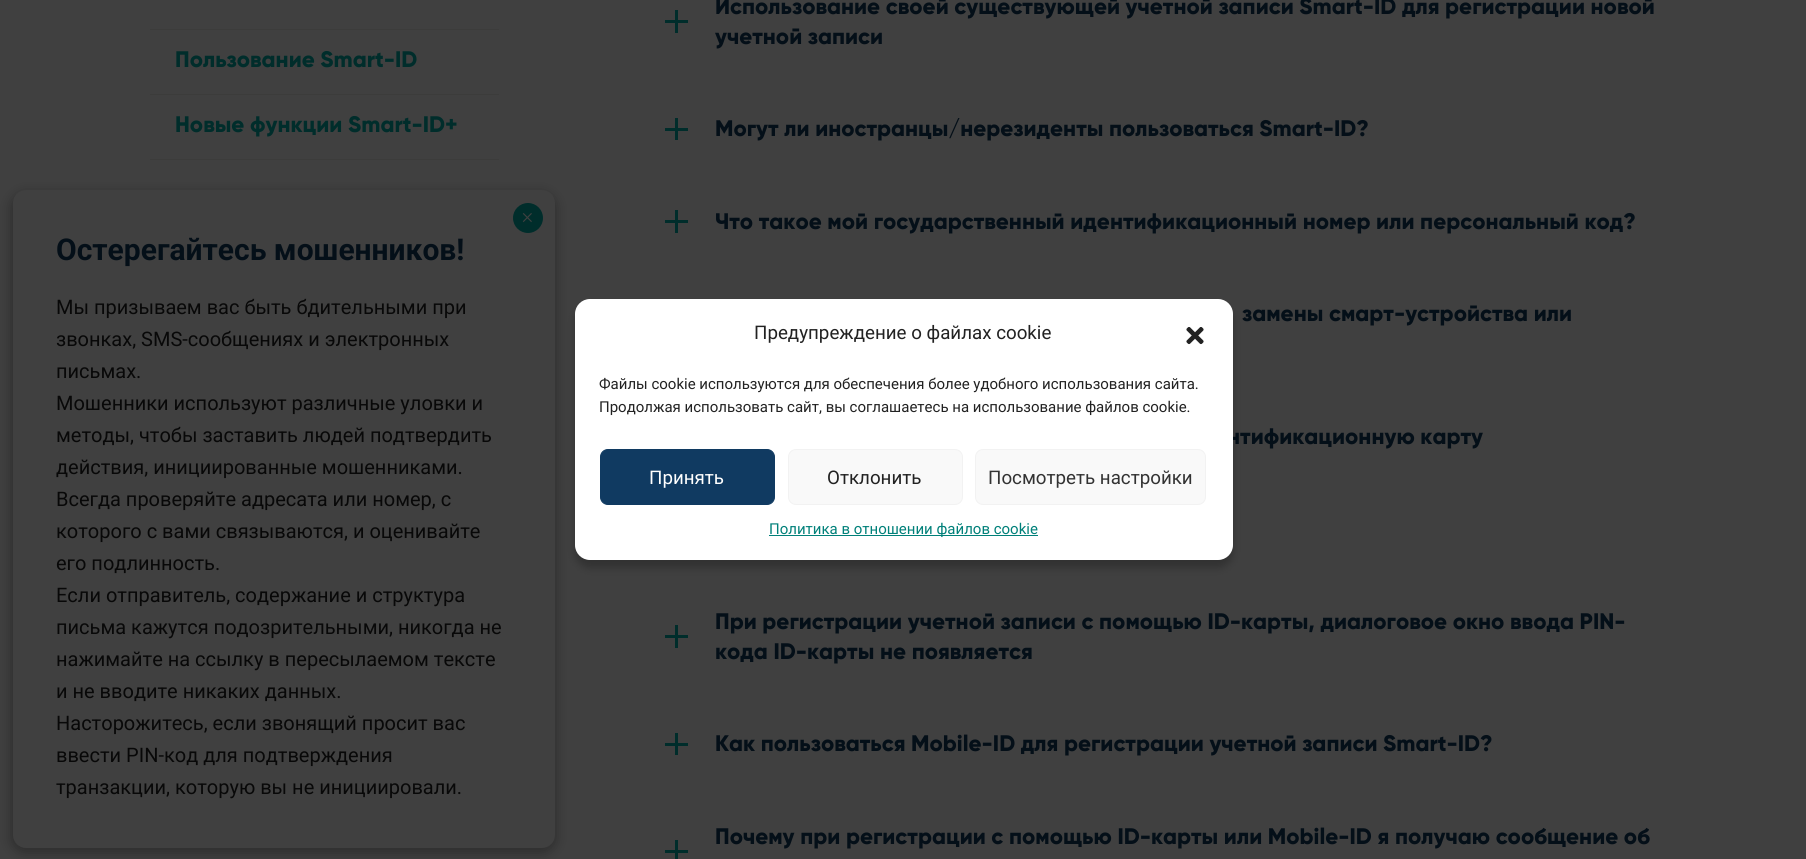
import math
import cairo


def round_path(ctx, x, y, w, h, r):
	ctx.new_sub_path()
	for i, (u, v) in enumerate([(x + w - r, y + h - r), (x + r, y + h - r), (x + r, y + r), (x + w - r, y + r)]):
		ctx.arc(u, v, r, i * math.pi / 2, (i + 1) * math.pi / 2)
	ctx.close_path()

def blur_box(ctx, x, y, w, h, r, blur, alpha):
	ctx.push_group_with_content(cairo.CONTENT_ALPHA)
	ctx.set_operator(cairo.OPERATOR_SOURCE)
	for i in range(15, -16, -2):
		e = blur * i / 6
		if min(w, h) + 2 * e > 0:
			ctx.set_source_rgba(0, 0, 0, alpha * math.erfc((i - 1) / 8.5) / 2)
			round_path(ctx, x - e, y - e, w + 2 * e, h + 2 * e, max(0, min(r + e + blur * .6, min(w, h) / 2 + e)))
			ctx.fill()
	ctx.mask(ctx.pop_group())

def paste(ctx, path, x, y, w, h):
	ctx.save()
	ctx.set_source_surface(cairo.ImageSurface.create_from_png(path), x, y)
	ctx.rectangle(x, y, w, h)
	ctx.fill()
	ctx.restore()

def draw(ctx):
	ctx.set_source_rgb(0.251, 0.251, 0.251)
	ctx.paint()
	ctx.set_source_rgb(0.235, 0.235, 0.231)
	ctx.rectangle(150, 29, 349, 1)
	ctx.fill()
	ctx.rectangle(150, 94, 349, 1)
	ctx.fill()
	ctx.select_font_face('Gilroy')
	ctx.set_font_size(22.5)
	ctx.set_source_rgb(0, 0.176, 0.169)
	ctx.move_to(175, 67)
	ctx.show_text('Пользование Smart-ID')
	ctx.set_source_rgb(0.235, 0.235, 0.231)
	ctx.rectangle(150, 159, 349, 1)
	ctx.fill()
	ctx.set_source_rgb(0, 0.176, 0.169)
	ctx.move_to(175, 132)
	ctx.show_text('Новые функции Smart-ID+')
	ctx.rectangle(665, 20, 23, 3)
	ctx.fill()
	ctx.rectangle(675, 10, 3, 23)
	ctx.fill()
	ctx.set_source_rgb(0.016, 0.059, 0.094)
	ctx.move_to(715, 14)
	ctx.show_text('Использование своей существующей учетной записи Smart-ID для регистрации новой')
	ctx.move_to(715, 44)
	ctx.show_text('учетной записи')
	ctx.set_source_rgb(0, 0.176, 0.169)
	ctx.rectangle(665, 128, 23, 3)
	ctx.fill()
	ctx.rectangle(675, 118, 3, 22)
	ctx.fill()
	ctx.set_source_rgb(0.016, 0.059, 0.094)
	ctx.move_to(715, 136)
	ctx.show_text('Могут ли иностранцы/нерезиденты пользоваться Smart-ID?')
	ctx.set_source_rgb(0, 0.176, 0.169)
	ctx.rectangle(665, 220, 23, 3)
	ctx.fill()
	ctx.rectangle(675, 210, 3, 23)
	ctx.fill()
	ctx.set_source_rgb(0.016, 0.059, 0.094)
	for x, y, s in [
		(715, 229, 'Что такое мой государственный идентификационный номер или персональный код?'),
		(1242, 321, 'замены смарт-устройства или'),
		(1227, 444, 'нтификационную карту'),
	]:
		ctx.move_to(x, y)
		ctx.show_text(s)
	ctx.set_source_rgb(0, 0.176, 0.169)
	ctx.rectangle(665, 635, 23, 3)
	ctx.fill()
	ctx.rectangle(675, 625, 3, 23)
	ctx.fill()
	ctx.set_source_rgb(0.016, 0.059, 0.094)
	ctx.move_to(715, 629)
	ctx.show_text('При регистрации учетной записи с помощью ID-карты, диалоговое окно ввода PIN-')
	ctx.move_to(715, 659)
	ctx.show_text('кода ID-карты не появляется')
	ctx.set_source_rgb(0, 0.176, 0.169)
	ctx.rectangle(665, 743, 23, 3)
	ctx.fill()
	ctx.rectangle(675, 733, 3, 22)
	ctx.fill()
	ctx.set_source_rgb(0.016, 0.059, 0.094)
	ctx.move_to(715, 751)
	ctx.show_text('Как пользоваться Mobile-ID для регистрации учетной записи Smart-ID?')
	ctx.set_source_rgb(0, 0.176, 0.169)
	ctx.rectangle(665, 850, 23, 3)
	ctx.fill()
	ctx.rectangle(675, 840, 3, 19)
	ctx.fill()
	ctx.set_source_rgb(0.016, 0.059, 0.094)
	ctx.move_to(715, 844)
	ctx.show_text('Почему при регистрации с помощью ID-карты или Mobile-ID я получаю сообщение об')
	ctx.set_source_rgb(0, 0, 0)
	blur_box(ctx, 11, 193, 545, 660, 14, 6, 0.3)
	ctx.set_source_rgb(0.251, 0.251, 0.251)
	round_path(ctx, 13, 190, 542, 658, 13)
	ctx.fill()
	ctx.set_source_rgb(0, 0.176, 0.169)
	ctx.arc(528, 218, 15, 0, 2 * math.pi)
	ctx.fill()
	ctx.select_font_face('Liberation Serif')
	ctx.set_source_rgb(0.251, 0.251, 0.251)
	ctx.move_to(521, 225)
	ctx.show_text('×')
	ctx.select_font_face('Roboto', cairo.FONT_SLANT_NORMAL, cairo.FONT_WEIGHT_BOLD)
	ctx.set_font_size(30)
	ctx.set_source_rgb(0.016, 0.059, 0.094)
	ctx.move_to(56, 260)
	ctx.show_text('Остерегайтесь мошенников!')
	ctx.select_font_face('Roboto')
	ctx.set_font_size(20)
	ctx.set_source_rgb(0.035, 0.035, 0.035)
	for x, y, s in [
		(56, 314, 'Мы призываем вас быть бдительными при'),
		(56, 346, 'звонках, SMS-сообщениях и электронных'),
		(56, 378, 'письмах.'),
		(56, 410, 'Мошенники используют различные уловки и'),
		(56, 442, 'методы, чтобы заставить людей подтвердить'),
		(56, 474, 'действия, инициированные мошенниками.'),
		(56, 506, 'Всегда проверяйте адресата или номер, с'),
		(56, 538, 'которого с вами связываются, и оценивайте'),
		(56, 570, 'его подлинность.'),
		(56, 602, 'Если отправитель, содержание и структура'),
		(56, 634, 'письма кажутся подозрительными, никогда не'),
		(56, 666, 'нажимайте на ссылку в пересылаемом тексте'),
		(56, 698, 'и не вводите никаких данных.'),
		(56, 730, 'Насторожитесь, если звонящий просит вас'),
		(56, 762, 'ввести PIN-код для подтверждения'),
		(56, 794, 'транзакции, которую вы не инициировали.'),
	]:
		ctx.move_to(x, y)
		ctx.show_text(s)
	ctx.set_source_rgb(0, 0, 0)
	blur_box(ctx, 575, 306, 658, 262, 15, 4, 0.23)
	ctx.set_source_rgb(1, 1, 1)
	round_path(ctx, 575, 299, 658, 261, 15)
	ctx.fill()
	ctx.set_font_size(18.75)
	ctx.set_source_rgb(0.133, 0.133, 0.133)
	ctx.move_to(754, 339)
	ctx.show_text('Предупреждение о файлах cookie')
	paste(ctx, 'media/1.png', 1186, 327, 18, 18)
	ctx.set_font_size(15)
	ctx.move_to(599, 389)
	ctx.show_text('Файлы cookie используются для обеспечения более удобного использования сайта.')
	ctx.move_to(599, 412)
	ctx.show_text('Продолжая использовать сайт, вы соглашаетесь на использование файлов cookie.')
	ctx.set_source_rgb(0.063, 0.227, 0.38)
	round_path(ctx, 600.5, 449.5, 174, 55, 7.5)
	ctx.fill_preserve()
	ctx.set_line_width(1)
	ctx.stroke()
	ctx.set_font_size(18.75)
	ctx.set_source_rgb(1, 1, 1)
	ctx.move_to(649, 484)
	ctx.show_text('Принять')
	ctx.set_source_rgb(0.976, 0.976, 0.976)
	round_path(ctx, 788.5, 449.5, 174, 55, 7.5)
	ctx.fill_preserve()
	ctx.set_source_rgb(0.949, 0.949, 0.949)
	ctx.stroke()
	ctx.set_source_rgb(0.133, 0.133, 0.133)
	ctx.move_to(827, 484)
	ctx.show_text('Отклонить')
	ctx.set_source_rgb(0.976, 0.976, 0.976)
	round_path(ctx, 975.5, 449.5, 230, 55, 7.5)
	ctx.fill_preserve()
	ctx.set_source_rgb(0.949, 0.949, 0.949)
	ctx.stroke()
	ctx.set_source_rgb(0.2, 0.2, 0.2)
	ctx.move_to(988, 484)
	ctx.show_text('Посмотреть настройки')
	ctx.set_source_rgb(0, 0.502, 0.475)
	ctx.rectangle(769, 535, 269, 1)
	ctx.fill()
	ctx.set_font_size(15)
	ctx.move_to(769, 534)
	ctx.show_text('Политика в отношении файлов cookie')


surface = cairo.ImageSurface(cairo.FORMAT_RGB24, 1806, 859)
ctx = cairo.Context(surface)
options = cairo.FontOptions()
options.set_hint_metrics(cairo.HINT_METRICS_OFF)
options.set_hint_style(cairo.HINT_STYLE_NONE)
ctx.set_font_options(options)
ctx.set_miter_limit(4)
draw(ctx)
surface.write_to_png('image.png')
